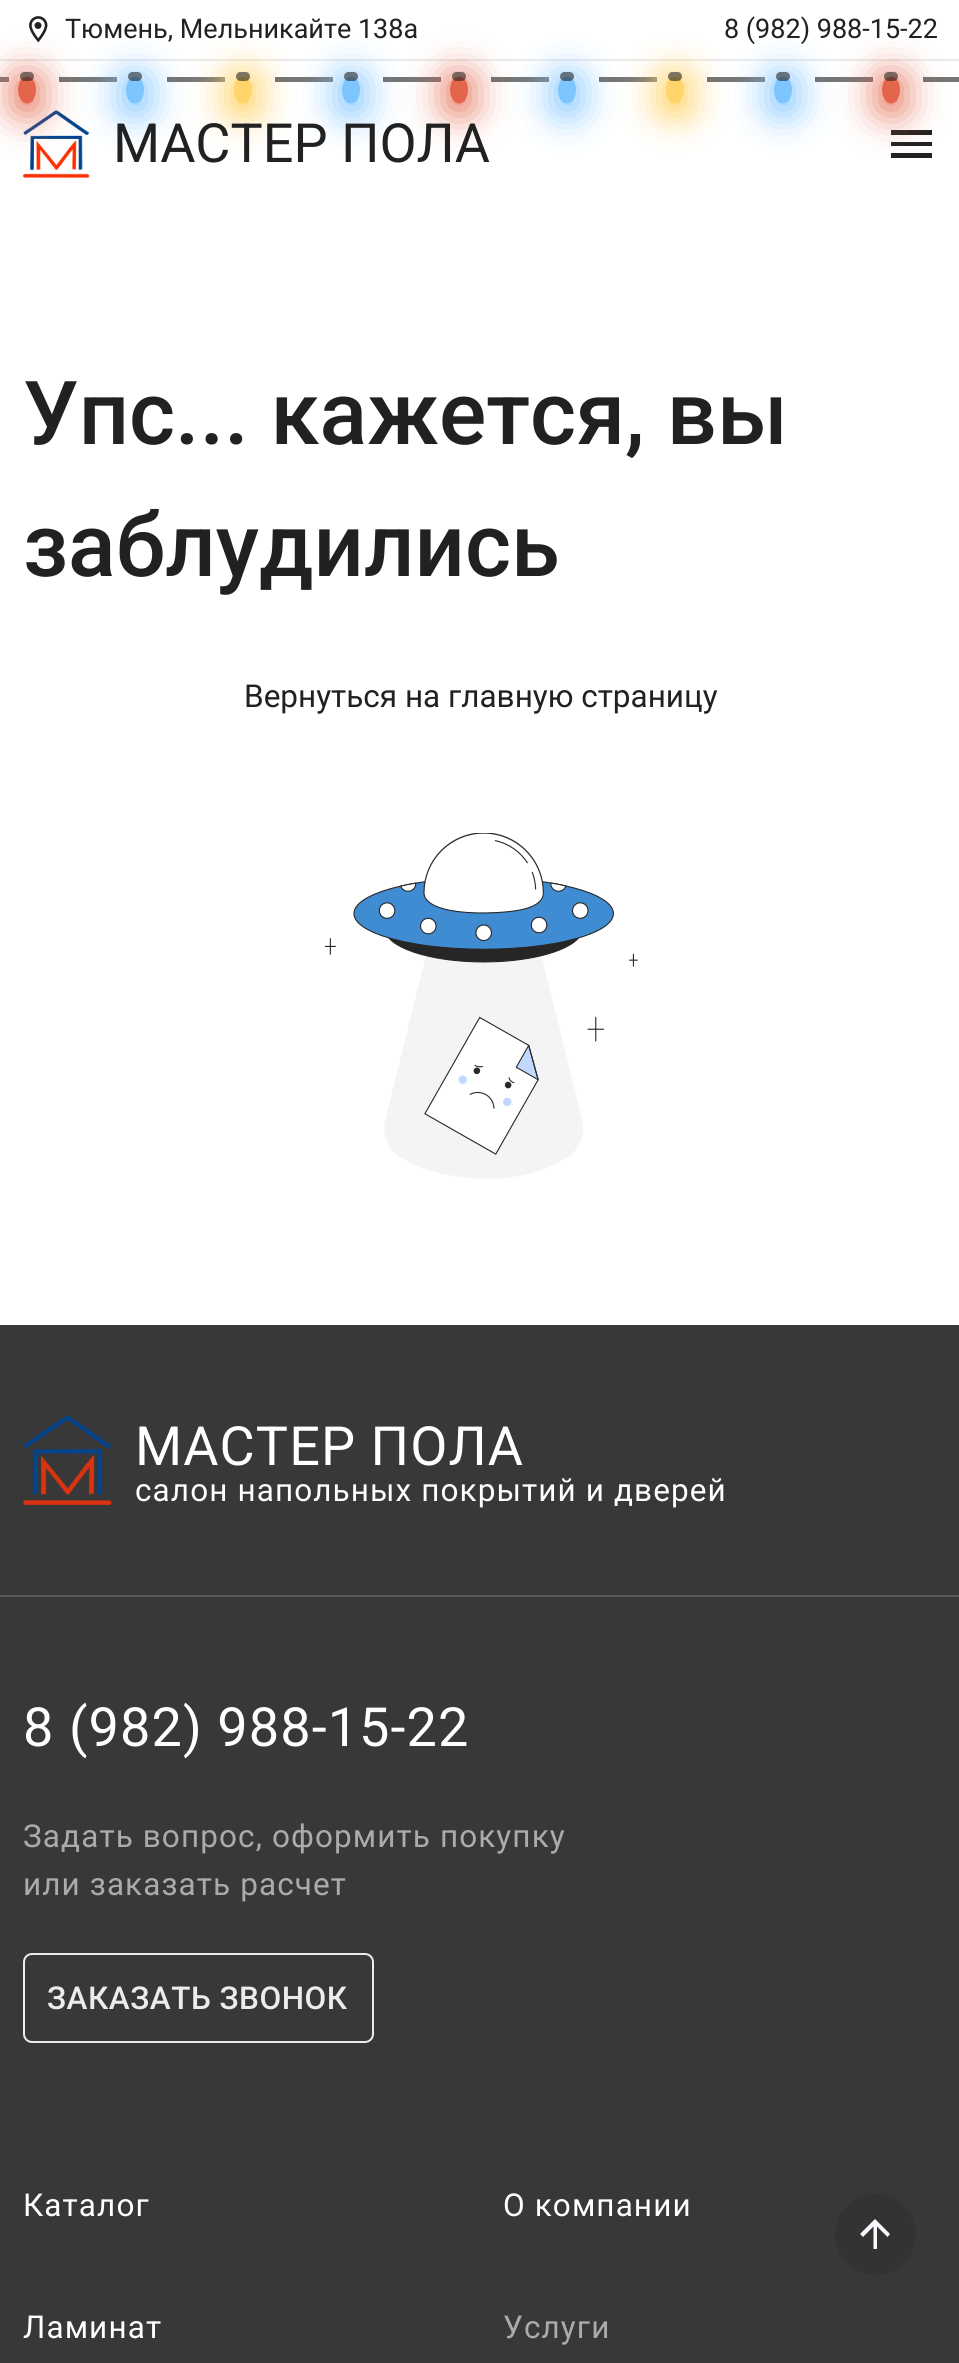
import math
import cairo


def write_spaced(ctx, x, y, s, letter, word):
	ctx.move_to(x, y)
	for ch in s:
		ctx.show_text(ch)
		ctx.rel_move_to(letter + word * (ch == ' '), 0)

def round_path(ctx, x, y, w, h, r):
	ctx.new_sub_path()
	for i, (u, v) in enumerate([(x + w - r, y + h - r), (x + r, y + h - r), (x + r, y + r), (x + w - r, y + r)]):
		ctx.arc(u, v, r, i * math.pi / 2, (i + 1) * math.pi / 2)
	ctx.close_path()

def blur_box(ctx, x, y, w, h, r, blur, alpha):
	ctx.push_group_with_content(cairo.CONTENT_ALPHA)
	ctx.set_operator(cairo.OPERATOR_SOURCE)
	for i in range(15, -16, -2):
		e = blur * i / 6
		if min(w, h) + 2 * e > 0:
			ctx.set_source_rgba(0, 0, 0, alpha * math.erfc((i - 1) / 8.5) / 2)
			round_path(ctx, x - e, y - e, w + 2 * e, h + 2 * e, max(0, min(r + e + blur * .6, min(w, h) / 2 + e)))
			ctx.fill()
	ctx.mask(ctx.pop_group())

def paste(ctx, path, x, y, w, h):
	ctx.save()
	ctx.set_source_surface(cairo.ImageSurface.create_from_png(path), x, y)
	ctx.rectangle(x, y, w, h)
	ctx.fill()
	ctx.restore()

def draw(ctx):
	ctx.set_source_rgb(1, 1, 1)
	ctx.paint()
	ctx.set_source_rgb(0.918, 0.918, 0.918)
	ctx.rectangle(0, 59, 959, 2)
	ctx.fill()
	paste(ctx, 'media/1.png', 29, 16, 19, 27)
	ctx.select_font_face('Roboto')
	ctx.set_font_size(27)
	ctx.set_source_rgb(0.129, 0.129, 0.129)
	ctx.move_to(65, 38)
	ctx.show_text('Тюмень, Мельникайте 138а')
	ctx.move_to(724, 38)
	ctx.show_text('8 (982) 988-15-22')
	ctx.set_source_rgb(0.467, 0.467, 0.467)
	ctx.rectangle(0, 77, 9, 5)
	ctx.fill()
	paste(ctx, 'media/2.png', 23, 110, 67, 68)
	ctx.set_source_rgb(0.89, 0.4, 0.298)
	blur_box(ctx, 11, 74, 32, 41, 16, 18, 0.8)
	ctx.set_source_rgb(0.89, 0.4, 0.298)
	ctx.new_path()
	ctx.move_to(27, 76.5)
	ctx.curve_to(32, 76.5, 36, 82.5, 36, 90)
	ctx.curve_to(36, 97.5, 32, 103.5, 27, 103.5)
	ctx.curve_to(22, 103.5, 18, 97.5, 18, 90)
	ctx.curve_to(18, 82.5, 22, 76.5, 27, 76.5)
	ctx.close_path()
	ctx.fill()
	ctx.set_source_rgba(0.133, 0.133, 0.133, 0.58)
	round_path(ctx, 20, 72, 14, 9, 4.5)
	ctx.fill()
	ctx.set_source_rgba(0.239, 0.239, 0.239, 0.7)
	ctx.rectangle(59, 77, 58, 5)
	ctx.fill()
	ctx.set_source_rgb(0.486, 0.773, 1)
	blur_box(ctx, 119, 74, 32, 41, 16, 18, 0.85)
	ctx.set_source_rgb(0.486, 0.773, 1)
	ctx.new_path()
	ctx.move_to(135, 76.5)
	ctx.curve_to(140, 76.5, 144, 82.5, 144, 90)
	ctx.curve_to(144, 97.5, 140, 103.5, 135, 103.5)
	ctx.curve_to(130, 103.5, 126, 97.5, 126, 90)
	ctx.curve_to(126, 82.5, 130, 76.5, 135, 76.5)
	ctx.close_path()
	ctx.fill()
	ctx.set_source_rgba(0.133, 0.133, 0.133, 0.58)
	round_path(ctx, 128, 72, 14, 9, 4.5)
	ctx.fill()
	ctx.set_source_rgba(0.239, 0.239, 0.239, 0.7)
	ctx.rectangle(167, 77, 58, 5)
	ctx.fill()
	ctx.set_source_rgb(1, 0.831, 0.416)
	blur_box(ctx, 227, 74, 32, 41, 16, 18, 1)
	ctx.set_source_rgb(1, 0.831, 0.416)
	ctx.new_path()
	ctx.move_to(243, 76.5)
	ctx.curve_to(248, 76.5, 252, 82.5, 252, 90)
	ctx.curve_to(252, 97.5, 248, 103.5, 243, 103.5)
	ctx.curve_to(238, 103.5, 234, 97.5, 234, 90)
	ctx.curve_to(234, 82.5, 238, 76.5, 243, 76.5)
	ctx.close_path()
	ctx.fill()
	ctx.set_source_rgba(0.133, 0.133, 0.133, 0.58)
	round_path(ctx, 236, 72, 14, 9, 4.5)
	ctx.fill()
	ctx.set_source_rgba(0.239, 0.239, 0.239, 0.7)
	ctx.rectangle(275, 77, 58, 5)
	ctx.fill()
	ctx.set_source_rgb(0.486, 0.773, 1)
	blur_box(ctx, 335, 74, 32, 41, 16, 18, 0.85)
	ctx.set_source_rgb(0.486, 0.773, 1)
	ctx.new_path()
	ctx.move_to(351, 76.5)
	ctx.curve_to(356, 76.5, 360, 82.5, 360, 90)
	ctx.curve_to(360, 97.5, 356, 103.5, 351, 103.5)
	ctx.curve_to(346, 103.5, 342, 97.5, 342, 90)
	ctx.curve_to(342, 82.5, 346, 76.5, 351, 76.5)
	ctx.close_path()
	ctx.fill()
	ctx.set_source_rgba(0.133, 0.133, 0.133, 0.58)
	round_path(ctx, 344, 72, 14, 9, 4.5)
	ctx.fill()
	ctx.set_source_rgba(0.239, 0.239, 0.239, 0.7)
	ctx.rectangle(383, 77, 58, 5)
	ctx.fill()
	ctx.set_source_rgb(0.89, 0.4, 0.298)
	blur_box(ctx, 443, 74, 32, 41, 16, 18, 0.8)
	ctx.set_source_rgb(0.89, 0.4, 0.298)
	ctx.new_path()
	ctx.move_to(459, 76.5)
	ctx.curve_to(464, 76.5, 468, 82.5, 468, 90)
	ctx.curve_to(468, 97.5, 464, 103.5, 459, 103.5)
	ctx.curve_to(454, 103.5, 450, 97.5, 450, 90)
	ctx.curve_to(450, 82.5, 454, 76.5, 459, 76.5)
	ctx.close_path()
	ctx.fill()
	ctx.set_source_rgba(0.133, 0.133, 0.133, 0.58)
	round_path(ctx, 452, 72, 14, 9, 4.5)
	ctx.fill()
	ctx.set_source_rgba(0.239, 0.239, 0.239, 0.7)
	ctx.rectangle(491, 77, 58, 5)
	ctx.fill()
	ctx.set_source_rgb(0.486, 0.773, 1)
	blur_box(ctx, 551, 74, 32, 41, 16, 18, 0.85)
	ctx.set_source_rgb(0.486, 0.773, 1)
	ctx.new_path()
	ctx.move_to(567, 76.5)
	ctx.curve_to(572, 76.5, 576, 82.5, 576, 90)
	ctx.curve_to(576, 97.5, 572, 103.5, 567, 103.5)
	ctx.curve_to(562, 103.5, 558, 97.5, 558, 90)
	ctx.curve_to(558, 82.5, 562, 76.5, 567, 76.5)
	ctx.close_path()
	ctx.fill()
	ctx.set_source_rgba(0.133, 0.133, 0.133, 0.58)
	round_path(ctx, 560, 72, 14, 9, 4.5)
	ctx.fill()
	ctx.set_source_rgba(0.239, 0.239, 0.239, 0.7)
	ctx.rectangle(599, 77, 58, 5)
	ctx.fill()
	ctx.set_source_rgb(1, 0.831, 0.416)
	blur_box(ctx, 659, 74, 32, 41, 16, 18, 1)
	ctx.set_source_rgb(1, 0.831, 0.416)
	ctx.new_path()
	ctx.move_to(675, 76.5)
	ctx.curve_to(680, 76.5, 684, 82.5, 684, 90)
	ctx.curve_to(684, 97.5, 680, 103.5, 675, 103.5)
	ctx.curve_to(670, 103.5, 666, 97.5, 666, 90)
	ctx.curve_to(666, 82.5, 670, 76.5, 675, 76.5)
	ctx.close_path()
	ctx.fill()
	ctx.set_source_rgba(0.133, 0.133, 0.133, 0.58)
	round_path(ctx, 668, 72, 14, 9, 4.5)
	ctx.fill()
	ctx.set_source_rgba(0.239, 0.239, 0.239, 0.7)
	ctx.rectangle(707, 77, 58, 5)
	ctx.fill()
	ctx.set_source_rgb(0.486, 0.773, 1)
	blur_box(ctx, 767, 74, 32, 41, 16, 18, 0.85)
	ctx.set_source_rgb(0.486, 0.773, 1)
	ctx.new_path()
	ctx.move_to(783, 76.5)
	ctx.curve_to(788, 76.5, 792, 82.5, 792, 90)
	ctx.curve_to(792, 97.5, 788, 103.5, 783, 103.5)
	ctx.curve_to(778, 103.5, 774, 97.5, 774, 90)
	ctx.curve_to(774, 82.5, 778, 76.5, 783, 76.5)
	ctx.close_path()
	ctx.fill()
	ctx.set_source_rgba(0.133, 0.133, 0.133, 0.58)
	round_path(ctx, 776, 72, 14, 9, 4.5)
	ctx.fill()
	ctx.set_source_rgba(0.239, 0.239, 0.239, 0.7)
	ctx.rectangle(815, 77, 58, 5)
	ctx.fill()
	ctx.set_source_rgb(0.129, 0.129, 0.129)
	ctx.new_path()
	ctx.move_to(891, 158)
	ctx.line_to(932, 158)
	ctx.line_to(932, 153)
	ctx.line_to(891, 153)
	ctx.close_path()
	ctx.move_to(891, 146)
	ctx.line_to(932, 146)
	ctx.line_to(932, 142)
	ctx.line_to(891, 142)
	ctx.close_path()
	ctx.move_to(891, 130)
	ctx.line_to(891, 135)
	ctx.line_to(932, 135)
	ctx.line_to(932, 130)
	ctx.close_path()
	ctx.fill()
	ctx.set_source_rgb(0.89, 0.4, 0.298)
	blur_box(ctx, 875, 74, 32, 41, 16, 18, 0.8)
	ctx.set_source_rgb(0.89, 0.4, 0.298)
	ctx.new_path()
	ctx.move_to(891, 76.5)
	ctx.curve_to(896, 76.5, 900, 82.5, 900, 90)
	ctx.curve_to(900, 97.5, 896, 103.5, 891, 103.5)
	ctx.curve_to(886, 103.5, 882, 97.5, 882, 90)
	ctx.curve_to(882, 82.5, 886, 76.5, 891, 76.5)
	ctx.close_path()
	ctx.fill()
	ctx.set_source_rgba(0.133, 0.133, 0.133, 0.58)
	round_path(ctx, 884, 72, 14, 9, 4.5)
	ctx.fill()
	ctx.set_source_rgba(0.239, 0.239, 0.239, 0.7)
	ctx.rectangle(923, 77, 36, 5)
	ctx.fill()
	ctx.set_font_size(54)
	ctx.set_source_rgb(0.129, 0.129, 0.129)
	ctx.move_to(113, 162)
	ctx.show_text('МАСТЕР ПОЛА')
	ctx.select_font_face('Roboto Medium')
	ctx.set_font_size(88.25)
	ctx.move_to(23, 444)
	ctx.show_text('Упс... кажется, вы')
	ctx.move_to(23, 576)
	ctx.show_text('заблудились')
	ctx.select_font_face('Roboto')
	ctx.set_font_size(31.5)
	ctx.move_to(244, 707)
	ctx.show_text('Вернуться на главную страницу')
	paste(ctx, 'media/3.png', 325, 833, 313, 346)
	ctx.set_source_rgb(0.22, 0.22, 0.224)
	ctx.rectangle(0, 1325, 959, 1038)
	ctx.fill()
	ctx.set_source_rgb(0.2, 0.2, 0.2)
	ctx.arc(875.5, 2234.5, 40.5, 0, 2 * math.pi)
	ctx.fill()
	ctx.set_source_rgb(0.976, 0.976, 0.992)
	ctx.new_path()
	ctx.move_to(860, 2234)
	ctx.line_to(863, 2237)
	ctx.line_to(873.5, 2226.5)
	ctx.line_to(873.5, 2249)
	ctx.line_to(877, 2249)
	ctx.line_to(877, 2226.5)
	ctx.line_to(887.5, 2237)
	ctx.line_to(890, 2234)
	ctx.line_to(875, 2219)
	ctx.close_path()
	ctx.fill()
	paste(ctx, 'media/4.png', 23, 1415, 89, 91)
	ctx.set_font_size(54)
	ctx.set_source_rgb(1, 1, 1)
	write_spaced(ctx, 135, 1465, 'МАСТЕР ПОЛА', 1.1, 0)
	ctx.set_font_size(31.5)
	write_spaced(ctx, 135, 1501, 'салон напольных покрытий и дверей', 1.1, 0)
	ctx.set_source_rgb(0.353, 0.353, 0.353)
	ctx.rectangle(0, 1595, 959, 2)
	ctx.fill()
	ctx.set_font_size(54)
	ctx.set_source_rgb(1, 1, 1)
	write_spaced(ctx, 23, 1746, '8 (982) 988-15-22', 1.1, 0)
	ctx.set_font_size(31.5)
	ctx.set_source_rgb(0.671, 0.671, 0.671)
	write_spaced(ctx, 23, 1847, 'Задать вопрос, оформить покупку', 1.1, 0)
	write_spaced(ctx, 23, 1895, 'или заказать расчет', 1.1, 0)
	round_path(ctx, 24, 1954, 349, 88, 8)
	ctx.set_source_rgb(0.922, 0.922, 0.922)
	ctx.stroke()
	ctx.select_font_face('Roboto Medium')
	write_spaced(ctx, 47, 2009, 'ЗАКАЗАТЬ ЗВОНОК', 0.5, 0)
	ctx.select_font_face('Roboto')
	ctx.set_source_rgb(1, 1, 1)
	for x, y, s in [
		(23, 2216, 'Каталог'),
		(23, 2338, 'Ламинат'),
		(503, 2216, 'О компании'),
	]:
		write_spaced(ctx, x, y, s, 1.1, 0)
	ctx.set_source_rgb(0.671, 0.671, 0.671)
	write_spaced(ctx, 503, 2338, 'Услуги', 1.1, 0)


surface = cairo.ImageSurface(cairo.FORMAT_RGB24, 959, 2363)
ctx = cairo.Context(surface)
options = cairo.FontOptions()
options.set_hint_metrics(cairo.HINT_METRICS_OFF)
options.set_hint_style(cairo.HINT_STYLE_NONE)
ctx.set_font_options(options)
ctx.set_miter_limit(4)
draw(ctx)
surface.write_to_png('image.png')
